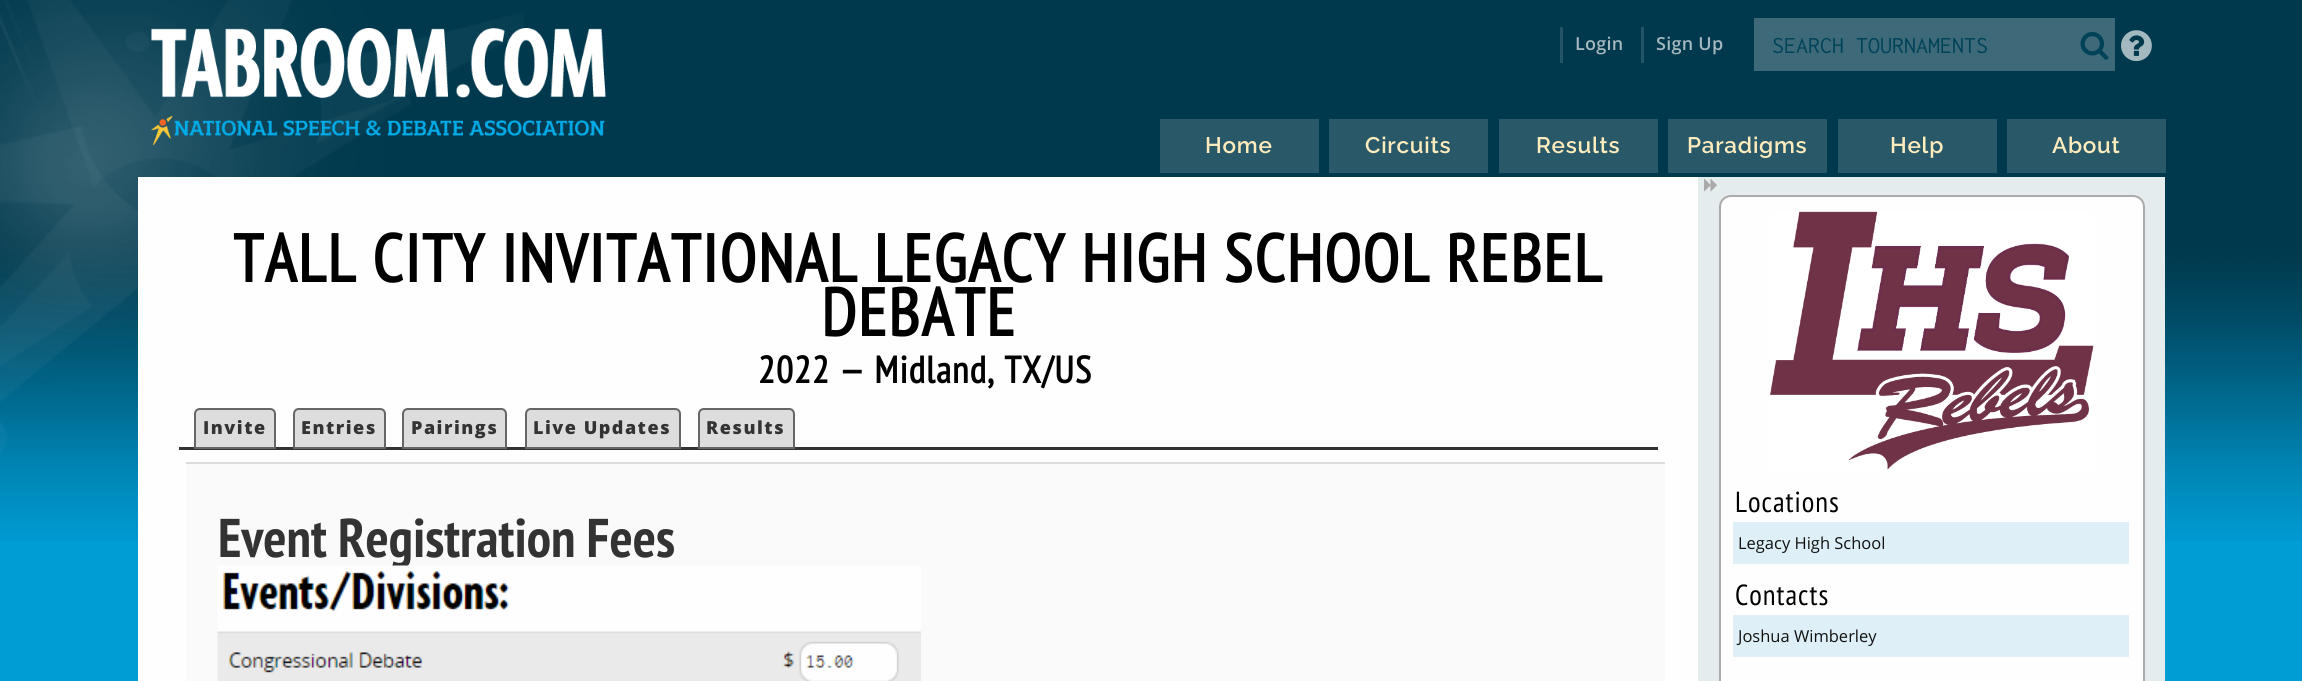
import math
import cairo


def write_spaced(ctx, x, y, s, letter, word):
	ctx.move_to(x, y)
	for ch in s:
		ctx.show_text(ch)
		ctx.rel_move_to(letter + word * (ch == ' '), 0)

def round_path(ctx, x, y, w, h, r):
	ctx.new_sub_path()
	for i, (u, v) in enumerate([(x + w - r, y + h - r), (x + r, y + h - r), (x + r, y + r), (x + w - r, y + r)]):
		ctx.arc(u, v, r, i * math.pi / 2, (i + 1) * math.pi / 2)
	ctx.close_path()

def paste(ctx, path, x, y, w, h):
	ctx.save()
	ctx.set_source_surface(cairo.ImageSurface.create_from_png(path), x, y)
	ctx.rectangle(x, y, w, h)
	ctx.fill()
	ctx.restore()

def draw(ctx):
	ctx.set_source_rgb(0, 0.612, 0.831)
	ctx.paint()
	paste(ctx, 'media/1.png', 0, 0, 2302, 541)
	paste(ctx, 'media/2.png', 0, 0, 524, 453)
	paste(ctx, 'media/3.png', 151, 28, 455, 118)
	ctx.set_source_rgb(0.141, 0.333, 0.4)
	ctx.rectangle(1560, 27, 3, 36)
	ctx.fill()
	ctx.select_font_face('Open Sans SemiBold')
	ctx.set_font_size(18)
	ctx.set_source_rgb(0.639, 0.722, 0.749)
	write_spaced(ctx, 1575, 50, 'Login', 0.25, 0)
	ctx.set_source_rgb(0.141, 0.333, 0.4)
	ctx.rectangle(1641, 27, 3, 36)
	ctx.fill()
	ctx.set_source_rgb(0.639, 0.722, 0.749)
	write_spaced(ctx, 1656, 50, 'Sign Up', 0.25, 0)
	ctx.set_source_rgb(0.239, 0.412, 0.471)
	ctx.rectangle(1754, 18, 361, 53)
	ctx.fill()
	ctx.select_font_face('Inconsolata')
	ctx.set_font_size(24)
	ctx.set_source_rgb(0, 0.263, 0.349)
	ctx.move_to(1772, 53)
	ctx.show_text('SEARCH TOURNAMENTS')
	paste(ctx, 'media/4.png', 2080, 32, 29, 28)
	paste(ctx, 'media/5.png', 2121, 30, 31, 32)
	ctx.set_source_rgb(0.161, 0.349, 0.412)
	ctx.rectangle(1160, 119, 159, 54)
	ctx.fill()
	ctx.select_font_face('Raleway SemiBold')
	ctx.set_font_size(22.5)
	ctx.set_source_rgb(1, 0.925, 0.741)
	write_spaced(ctx, 1205, 153, 'Home', 0.75, 0)
	ctx.set_source_rgb(0.161, 0.349, 0.412)
	ctx.rectangle(1329, 119, 159, 54)
	ctx.fill()
	ctx.set_source_rgb(1, 0.925, 0.741)
	write_spaced(ctx, 1365, 153, 'Circuits', 0.75, 0)
	ctx.set_source_rgb(0.161, 0.349, 0.412)
	ctx.rectangle(1499, 119, 159, 54)
	ctx.fill()
	ctx.set_source_rgb(1, 0.925, 0.741)
	write_spaced(ctx, 1536, 153, 'Results', 0.75, 0)
	ctx.set_source_rgb(0.161, 0.349, 0.412)
	ctx.rectangle(1668, 119, 159, 54)
	ctx.fill()
	ctx.set_source_rgb(1, 0.925, 0.741)
	write_spaced(ctx, 1687, 153, 'Paradigms', 0.75, 0)
	ctx.set_source_rgb(0.161, 0.349, 0.412)
	ctx.rectangle(1838, 119, 159, 54)
	ctx.fill()
	ctx.set_source_rgb(1, 0.925, 0.741)
	write_spaced(ctx, 1890, 153, 'Help', 0.75, 0)
	ctx.set_source_rgb(0.161, 0.349, 0.412)
	ctx.rectangle(2007, 119, 159, 54)
	ctx.fill()
	ctx.set_source_rgb(1, 0.925, 0.741)
	write_spaced(ctx, 2052, 153, 'About', 0.75, 0)
	ctx.set_source_rgb(0.898, 0.922, 0.929)
	ctx.rectangle(1698, 177, 467, 504)
	ctx.fill()
	ctx.set_source_rgb(0.996, 0.996, 0.996)
	ctx.rectangle(138, 177, 1560, 504)
	ctx.fill()
	ctx.select_font_face('PT Sans Narrow', cairo.FONT_SLANT_NORMAL, cairo.FONT_WEIGHT_BOLD)
	ctx.set_font_size(67.2)
	ctx.set_source_rgb(0, 0, 0)
	write_spaced(ctx, 233, 282, 'TALL CITY INVITATIONAL LEGACY HIGH SCHOOL REBEL', 1.5, 0)
	write_spaced(ctx, 821, 336, 'DEBATE', 1.5, 0)
	ctx.set_font_size(37.75)
	write_spaced(ctx, 758, 383, '2022 — Midland, TX/US', 1.05, 0)
	ctx.set_source_rgb(0.2, 0.2, 0.2)
	ctx.rectangle(179, 447, 1479, 3)
	ctx.fill()
	ctx.set_source_rgb(0.867, 0.867, 0.867)
	ctx.new_path()
	ctx.move_to(200, 409)
	ctx.line_to(270, 409)
	ctx.curve_to(273, 409, 275, 411, 275, 414)
	ctx.line_to(275, 448)
	ctx.line_to(195, 448)
	ctx.line_to(195, 414)
	ctx.curve_to(195, 411, 197, 409, 200, 409)
	ctx.close_path()
	ctx.fill_preserve()
	ctx.set_source_rgb(0.4, 0.4, 0.4)
	ctx.stroke()
	ctx.select_font_face('Open Sans ExtraBold')
	ctx.set_font_size(18)
	ctx.set_source_rgb(0.2, 0.2, 0.2)
	write_spaced(ctx, 203, 434, 'Invite', 1.5, 0)
	ctx.set_source_rgb(0.867, 0.867, 0.867)
	ctx.new_path()
	ctx.move_to(299, 409)
	ctx.line_to(380, 409)
	ctx.curve_to(383, 409, 385, 411, 385, 414)
	ctx.line_to(385, 448)
	ctx.line_to(294, 448)
	ctx.line_to(294, 414)
	ctx.curve_to(294, 411, 296, 409, 299, 409)
	ctx.close_path()
	ctx.fill_preserve()
	ctx.set_source_rgb(0.4, 0.4, 0.4)
	ctx.stroke()
	ctx.set_source_rgb(0.2, 0.2, 0.2)
	write_spaced(ctx, 301, 434, 'Entries', 1.5, 0)
	ctx.set_source_rgb(0.867, 0.867, 0.867)
	ctx.new_path()
	ctx.move_to(408, 409)
	ctx.line_to(501, 409)
	ctx.curve_to(504, 409, 506, 411, 506, 414)
	ctx.line_to(506, 448)
	ctx.line_to(403, 448)
	ctx.line_to(403, 414)
	ctx.curve_to(403, 411, 405, 409, 408, 409)
	ctx.close_path()
	ctx.fill_preserve()
	ctx.set_source_rgb(0.4, 0.4, 0.4)
	ctx.stroke()
	ctx.set_source_rgb(0.2, 0.2, 0.2)
	write_spaced(ctx, 411, 434, 'Pairings', 1.5, 0)
	ctx.set_source_rgb(0.867, 0.867, 0.867)
	ctx.new_path()
	ctx.move_to(531, 409)
	ctx.line_to(675, 409)
	ctx.curve_to(678, 409, 680, 411, 680, 414)
	ctx.line_to(680, 448)
	ctx.line_to(526, 448)
	ctx.line_to(526, 414)
	ctx.curve_to(526, 411, 528, 409, 531, 409)
	ctx.close_path()
	ctx.fill_preserve()
	ctx.set_source_rgb(0.4, 0.4, 0.4)
	ctx.stroke()
	ctx.set_source_rgb(0.2, 0.2, 0.2)
	write_spaced(ctx, 533, 434, 'Live Updates', 1.5, 0)
	ctx.set_source_rgb(0.867, 0.867, 0.867)
	ctx.new_path()
	ctx.move_to(704, 409)
	ctx.line_to(789, 409)
	ctx.curve_to(792, 409, 794, 411, 794, 414)
	ctx.line_to(794, 448)
	ctx.line_to(699, 448)
	ctx.line_to(699, 414)
	ctx.curve_to(699, 411, 701, 409, 704, 409)
	ctx.close_path()
	ctx.fill_preserve()
	ctx.set_source_rgb(0.4, 0.4, 0.4)
	ctx.stroke()
	ctx.set_source_rgb(0.2, 0.2, 0.2)
	write_spaced(ctx, 706, 434, 'Results', 1.5, 0)
	ctx.set_source_rgb(0.98, 0.98, 0.98)
	ctx.rectangle(186, 464, 1479, 217)
	ctx.fill()
	ctx.set_source_rgb(0.867, 0.867, 0.867)
	ctx.rectangle(186, 462, 1479, 2)
	ctx.fill()
	ctx.select_font_face('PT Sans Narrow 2', cairo.FONT_SLANT_NORMAL, cairo.FONT_WEIGHT_BOLD)
	ctx.set_font_size(54.5)
	ctx.set_source_rgb(0.2, 0.2, 0.2)
	ctx.move_to(218, 557)
	ctx.show_text('Event Registration Fees')
	paste(ctx, 'media/6.png', 217, 565, 704, 116)
	paste(ctx, 'media/7.png', 1704, 178, 13, 14)
	ctx.set_source_rgb(0.996, 0.996, 0.996)
	round_path(ctx, 1720, 196, 424, 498, 11)
	ctx.fill_preserve()
	ctx.set_source_rgb(0.667, 0.667, 0.667)
	ctx.stroke()
	paste(ctx, 'media/8.png', 1770, 211, 324, 259)
	ctx.select_font_face('PT Sans Narrow')
	ctx.set_font_size(29)
	ctx.set_source_rgb(0, 0, 0)
	write_spaced(ctx, 1735, 512, 'Locations', 1, 0)
	ctx.set_source_rgb(0.875, 0.937, 0.965)
	ctx.rectangle(1733, 522, 396, 42)
	ctx.fill()
	ctx.select_font_face('Open Sans')
	ctx.set_font_size(16.5)
	ctx.set_source_rgb(0.067, 0.067, 0.067)
	ctx.move_to(1738, 549)
	ctx.show_text('Legacy High School')
	ctx.select_font_face('PT Sans Narrow')
	ctx.set_font_size(29)
	ctx.set_source_rgb(0, 0, 0)
	write_spaced(ctx, 1735, 605, 'Contacts', 1, 0)
	ctx.set_source_rgb(0.875, 0.937, 0.965)
	ctx.rectangle(1733, 615, 396, 42)
	ctx.fill()
	ctx.select_font_face('Open Sans')
	ctx.set_font_size(16.5)
	ctx.set_source_rgb(0.067, 0.067, 0.067)
	ctx.move_to(1738, 642)
	ctx.show_text('Joshua Wimberley')


surface = cairo.ImageSurface(cairo.FORMAT_RGB24, 2302, 681)
ctx = cairo.Context(surface)
options = cairo.FontOptions()
options.set_hint_metrics(cairo.HINT_METRICS_OFF)
options.set_hint_style(cairo.HINT_STYLE_NONE)
ctx.set_font_options(options)
ctx.set_miter_limit(4)
draw(ctx)
surface.write_to_png('image.png')
